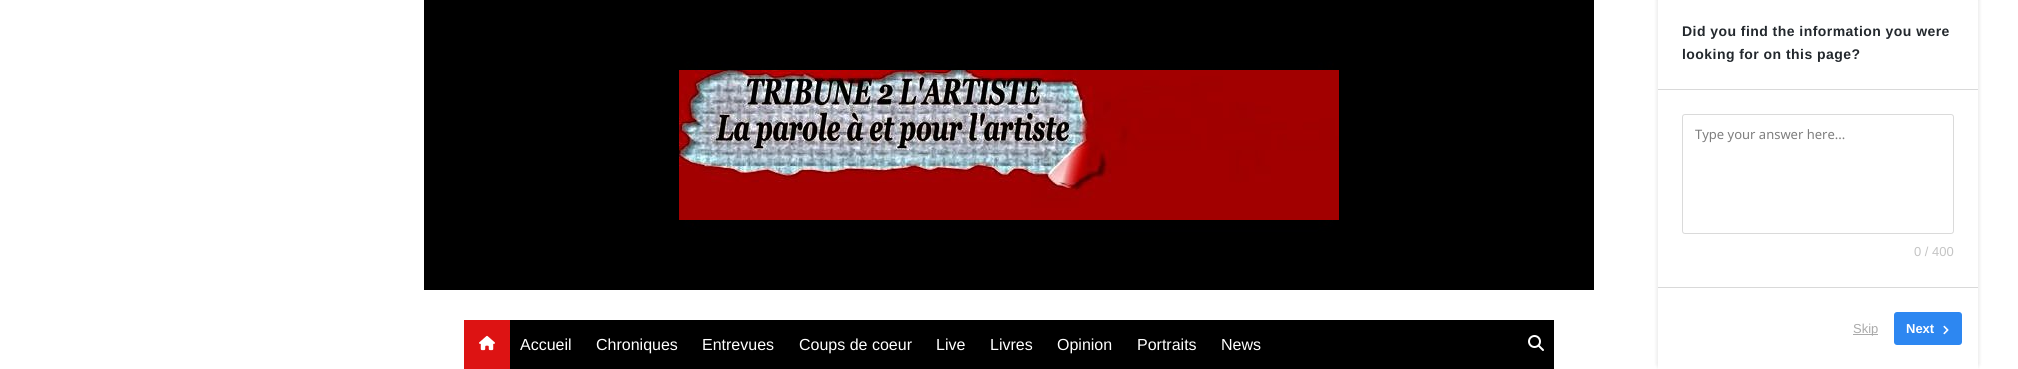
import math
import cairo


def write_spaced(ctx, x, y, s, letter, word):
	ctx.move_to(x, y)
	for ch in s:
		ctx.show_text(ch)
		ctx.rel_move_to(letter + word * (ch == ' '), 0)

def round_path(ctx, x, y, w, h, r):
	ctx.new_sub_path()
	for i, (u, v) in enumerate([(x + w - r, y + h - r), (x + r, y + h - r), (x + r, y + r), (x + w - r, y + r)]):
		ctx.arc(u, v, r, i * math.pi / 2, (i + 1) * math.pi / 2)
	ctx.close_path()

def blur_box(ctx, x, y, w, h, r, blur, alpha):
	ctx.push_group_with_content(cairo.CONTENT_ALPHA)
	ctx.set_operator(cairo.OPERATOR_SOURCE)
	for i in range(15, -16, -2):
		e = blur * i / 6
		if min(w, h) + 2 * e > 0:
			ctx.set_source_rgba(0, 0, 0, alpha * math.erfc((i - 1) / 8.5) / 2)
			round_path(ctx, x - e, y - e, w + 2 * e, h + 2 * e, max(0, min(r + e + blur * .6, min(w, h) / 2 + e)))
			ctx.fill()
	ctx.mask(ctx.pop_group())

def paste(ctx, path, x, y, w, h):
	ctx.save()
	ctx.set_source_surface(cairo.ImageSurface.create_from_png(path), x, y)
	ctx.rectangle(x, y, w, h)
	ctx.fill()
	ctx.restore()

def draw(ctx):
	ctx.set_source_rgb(1, 1, 1)
	ctx.paint()
	ctx.save()
	ctx.set_fill_rule(cairo.FILL_RULE_EVEN_ODD)
	ctx.new_path()
	ctx.move_to(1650, 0)
	ctx.line_to(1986, 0)
	ctx.line_to(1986, 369)
	ctx.line_to(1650, 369)
	ctx.close_path()
	ctx.move_to(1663, -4)
	ctx.line_to(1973, -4)
	ctx.curve_to(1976, -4, 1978, -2, 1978, 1)
	ctx.line_to(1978, 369)
	ctx.line_to(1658, 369)
	ctx.line_to(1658, 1)
	ctx.curve_to(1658, -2, 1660, -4, 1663, -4)
	ctx.close_path()
	ctx.clip()
	ctx.set_source_rgb(0, 0, 0)
	blur_box(ctx, 1656, -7, 324, 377, 7, 1.5, 0.07)
	ctx.restore()
	ctx.select_font_face('Liberation Sans', cairo.FONT_SLANT_NORMAL, cairo.FONT_WEIGHT_BOLD)
	ctx.set_font_size(14)
	ctx.set_source_rgb(0.137, 0.157, 0.176)
	write_spaced(ctx, 1682, 36, 'Did you find the information you were', 0.45, 0)
	write_spaced(ctx, 1682, 59, 'looking for on this page?', 0.45, 0)
	ctx.set_source_rgb(0.851, 0.851, 0.851)
	ctx.rectangle(1658, 89, 320, 1)
	ctx.fill()
	ctx.rectangle(1658, 287, 320, 1)
	ctx.fill()
	round_path(ctx, 1682.5, 114.5, 271, 119, 2.5)
	ctx.set_source_rgb(0.855, 0.855, 0.855)
	ctx.set_line_width(1)
	ctx.stroke()
	ctx.select_font_face('Noto Sans')
	ctx.set_font_size(13)
	ctx.set_source_rgb(0.494, 0.494, 0.494)
	ctx.move_to(1695, 139)
	ctx.show_text('Type your answer here...')
	ctx.select_font_face('Liberation Sans')
	ctx.set_source_rgb(0.769, 0.769, 0.769)
	ctx.move_to(1914, 256)
	ctx.show_text('0 / 400')
	ctx.set_source_rgb(0.667, 0.667, 0.667)
	ctx.rectangle(1853, 334, 25, 1)
	ctx.fill()
	ctx.move_to(1853, 333)
	ctx.show_text('Skip')
	ctx.set_source_rgb(0.176, 0.529, 0.945)
	round_path(ctx, 1894, 312, 68, 33, 3)
	ctx.fill()
	ctx.select_font_face('Liberation Sans', cairo.FONT_SLANT_NORMAL, cairo.FONT_WEIGHT_BOLD)
	ctx.set_source_rgb(1, 1, 1)
	ctx.move_to(1906, 333)
	ctx.show_text('Next')
	paste(ctx, 'media/1.png', 1943, 325, 6, 10)
	paste(ctx, 'media/2.png', 424, 0, 1170, 290)
	paste(ctx, 'media/3.png', 679, 70, 660, 150)
	ctx.set_source_rgb(0, 0, 0)
	ctx.rectangle(510, 320, 1044, 49)
	ctx.fill()
	ctx.set_source_rgb(0.867, 0.075, 0.075)
	ctx.rectangle(464, 320, 46, 49)
	ctx.fill()
	paste(ctx, 'media/4.png', 479, 335, 16, 16)
	ctx.select_font_face('Liberation Sans')
	ctx.set_font_size(16)
	ctx.set_source_rgb(1, 1, 1)
	for x, y, s in [
		(520, 350, 'Accueil'),
		(596, 350, 'Chroniques'),
		(702, 350, 'Entrevues'),
		(799, 350, 'Coups de coeur'),
		(936, 350, 'Live'),
		(990, 350, 'Livres'),
		(1057, 350, 'Opinion'),
		(1137, 350, 'Portraits'),
		(1221, 350, 'News'),
	]:
		ctx.move_to(x, y)
		ctx.show_text(s)
	paste(ctx, 'media/5.png', 1528, 335, 16, 16)


surface = cairo.ImageSurface(cairo.FORMAT_RGB24, 2018, 369)
ctx = cairo.Context(surface)
options = cairo.FontOptions()
options.set_hint_metrics(cairo.HINT_METRICS_OFF)
options.set_hint_style(cairo.HINT_STYLE_NONE)
ctx.set_font_options(options)
ctx.set_miter_limit(4)
draw(ctx)
surface.write_to_png('image.png')
